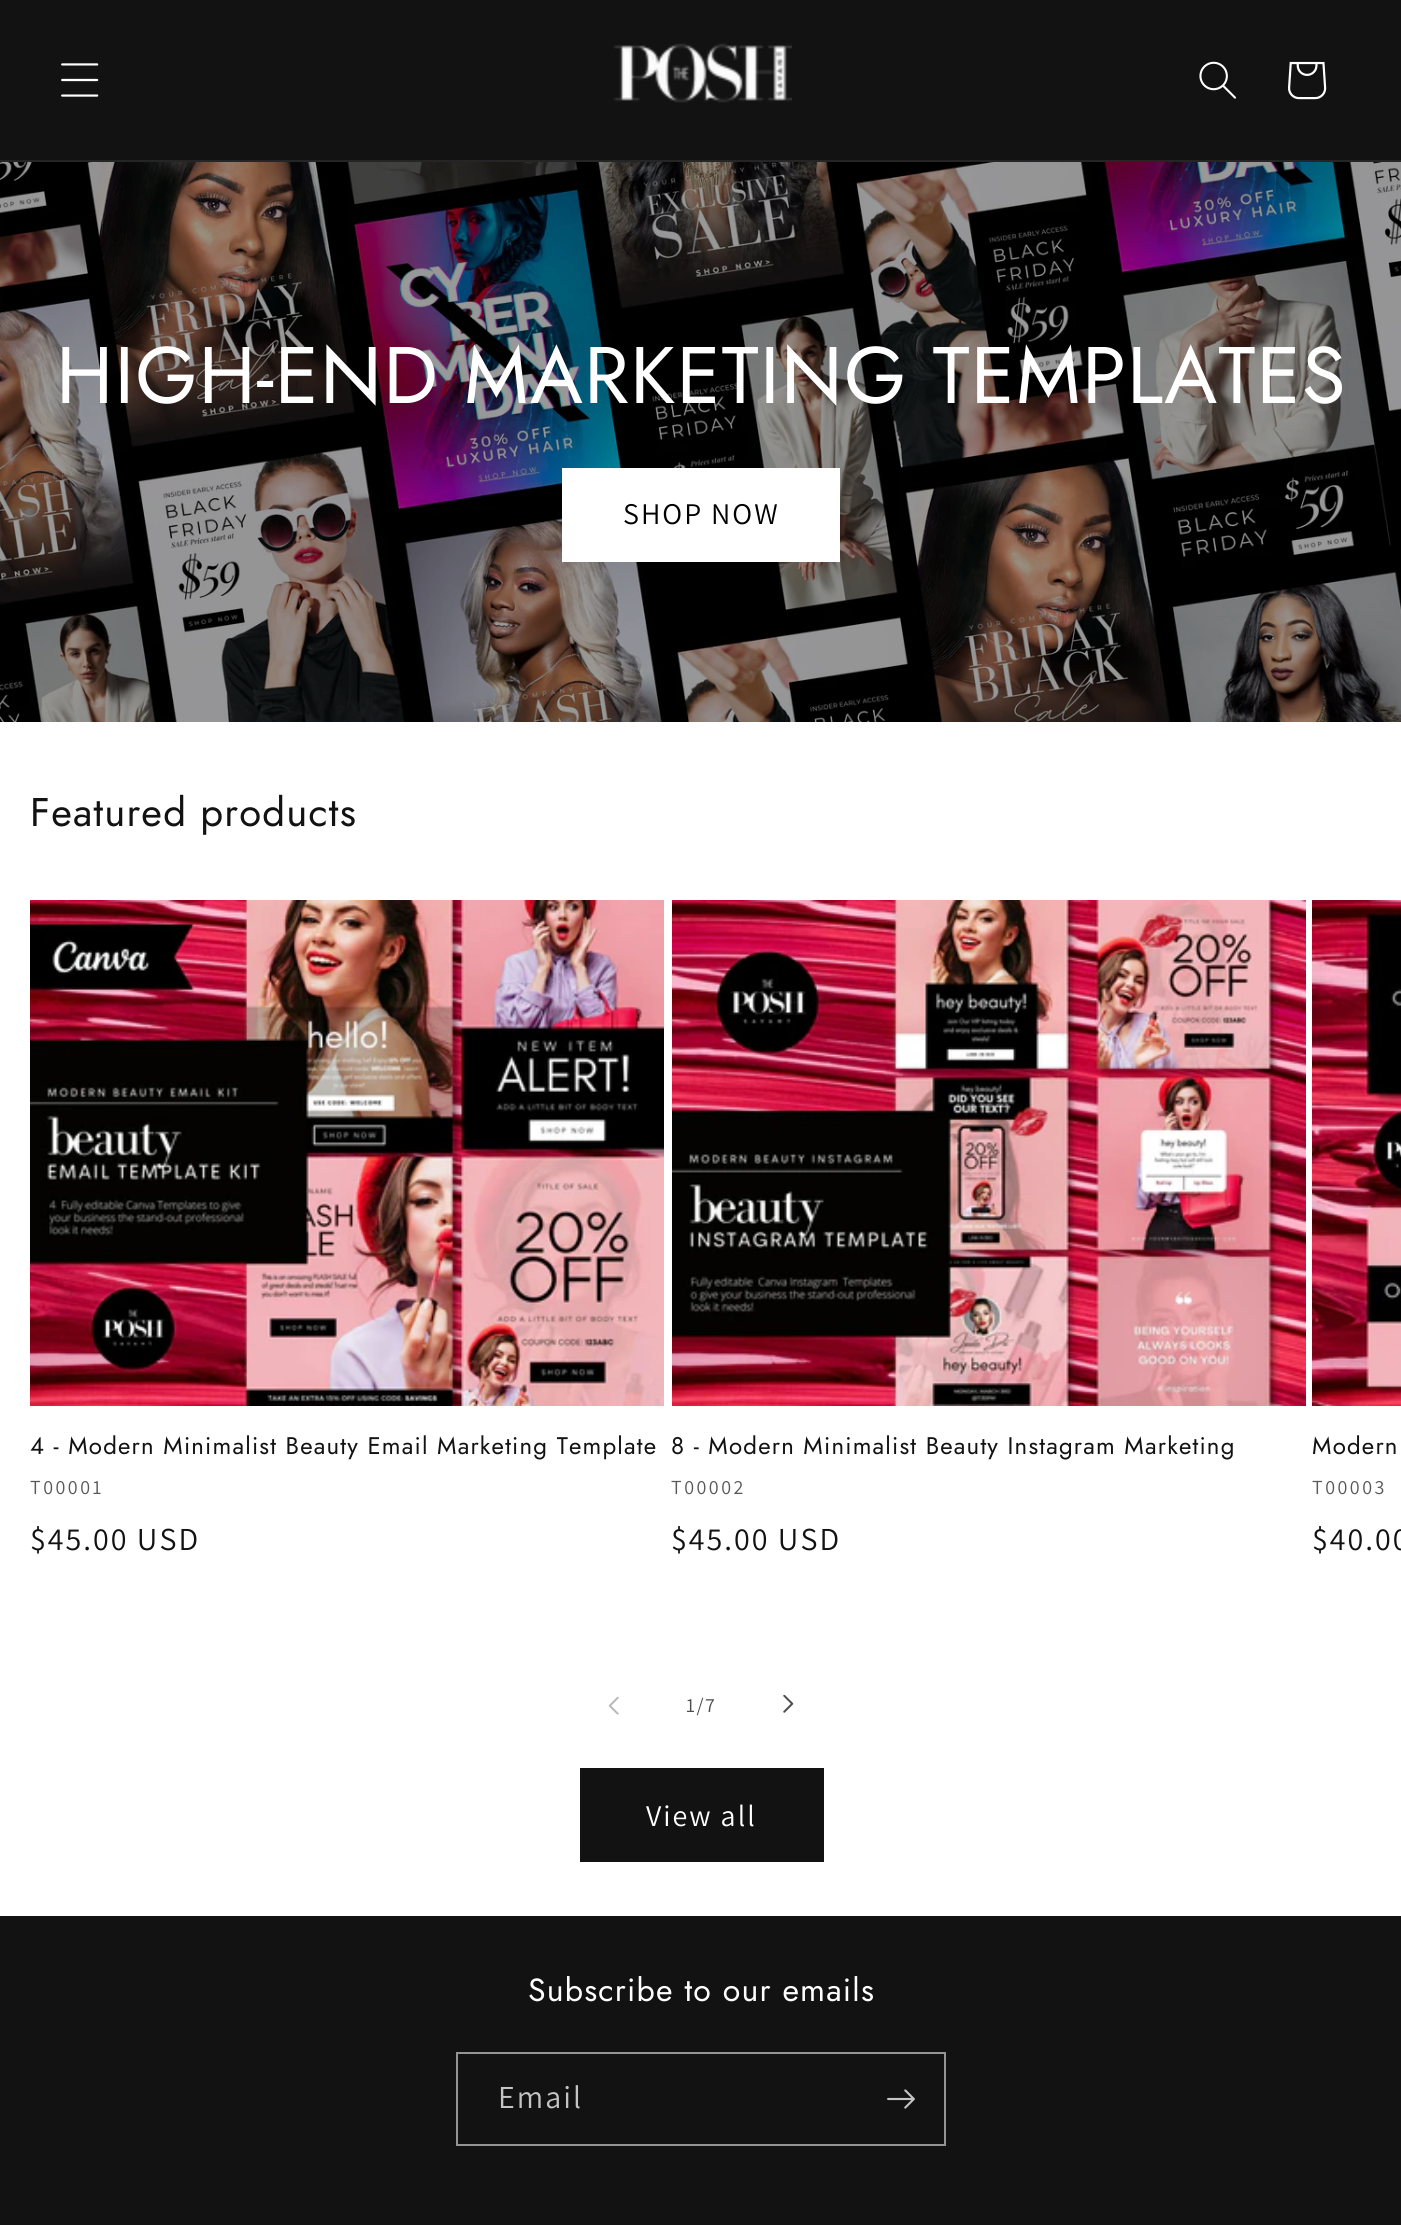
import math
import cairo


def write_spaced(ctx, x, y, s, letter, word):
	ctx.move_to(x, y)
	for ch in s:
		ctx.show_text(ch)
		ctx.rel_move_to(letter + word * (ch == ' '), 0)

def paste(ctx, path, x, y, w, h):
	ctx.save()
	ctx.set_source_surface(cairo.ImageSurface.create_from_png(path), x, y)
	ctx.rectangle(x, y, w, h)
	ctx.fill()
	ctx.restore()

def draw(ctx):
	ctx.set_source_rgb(1, 1, 1)
	ctx.paint()
	ctx.set_source_rgb(0.071, 0.071, 0.071)
	ctx.rectangle(0, 0, 1401, 160)
	ctx.fill()
	ctx.set_source_rgb(0.145, 0.145, 0.145)
	ctx.rectangle(0, 160, 1401, 2)
	ctx.fill()
	paste(ctx, 'media/1.png', 61, 63, 38, 34)
	paste(ctx, 'media/2.png', 613, 43, 179, 60)
	paste(ctx, 'media/3.png', 1199, 61, 37, 38)
	paste(ctx, 'media/4.png', 1288, 61, 39, 39)
	paste(ctx, 'media/5.png', 0, 162, 1401, 560)
	ctx.select_font_face('Jost')
	ctx.set_font_size(80)
	ctx.set_source_rgb(1, 1, 1)
	write_spaced(ctx, 56, 403, 'HIGH-END MARKETING TEMPLATES', 1.2, 0)
	ctx.rectangle(562, 468, 278, 94)
	ctx.fill()
	ctx.select_font_face('Assistant')
	ctx.set_font_size(30)
	ctx.set_source_rgb(0, 0, 0)
	write_spaced(ctx, 623, 524, 'SHOP NOW', 2, 0)
	ctx.select_font_face('Jost')
	ctx.set_font_size(40)
	ctx.set_source_rgb(0.071, 0.071, 0.071)
	write_spaced(ctx, 30, 826, 'Featured products', 1.2, 0)
	paste(ctx, 'media/6.png', 30, 900, 634, 506)
	ctx.set_font_size(24)
	write_spaced(ctx, 30, 1454, '4 - Modern Minimalist Beauty Email Marketing Template', 1.2, 0)
	ctx.select_font_face('Assistant')
	ctx.set_font_size(20)
	ctx.set_source_rgb(0.349, 0.349, 0.349)
	write_spaced(ctx, 30, 1494, 'T00001', 2.5, 0)
	ctx.set_font_size(32)
	ctx.set_source_rgb(0.071, 0.071, 0.071)
	write_spaced(ctx, 30, 1550, '$45.00 USD', 2, 0)
	paste(ctx, 'media/7.png', 672, 900, 634, 506)
	ctx.select_font_face('Jost')
	ctx.set_font_size(24)
	write_spaced(ctx, 671, 1454, '8 - Modern Minimalist Beauty Instagram Marketing', 1.2, 0)
	ctx.select_font_face('Assistant')
	ctx.set_font_size(20)
	ctx.set_source_rgb(0.349, 0.349, 0.349)
	write_spaced(ctx, 671, 1494, 'T00002', 2.5, 0)
	ctx.set_font_size(32)
	ctx.set_source_rgb(0.071, 0.071, 0.071)
	write_spaced(ctx, 671, 1550, '$45.00 USD', 2, 0)
	paste(ctx, 'media/8.png', 1312, 900, 89, 506)
	ctx.select_font_face('Jost')
	ctx.set_font_size(24)
	write_spaced(ctx, 1312, 1454, 'Modern', 1.2, 0)
	ctx.select_font_face('Assistant')
	ctx.set_font_size(20)
	ctx.set_source_rgb(0.349, 0.349, 0.349)
	write_spaced(ctx, 1312, 1494, 'T00003', 2.5, 0)
	ctx.set_font_size(32)
	ctx.set_source_rgb(0.071, 0.071, 0.071)
	write_spaced(ctx, 1312, 1550, '$40.00', 2, 0)
	paste(ctx, 'media/9.png', 608, 1696, 11, 19)
	ctx.set_font_size(20)
	ctx.set_source_rgb(0.302, 0.302, 0.302)
	write_spaced(ctx, 686, 1712, '1/7', 1.5, 0)
	paste(ctx, 'media/10.png', 783, 1694, 11, 19)
	ctx.set_source_rgb(0.071, 0.071, 0.071)
	ctx.rectangle(580, 1768, 244, 94)
	ctx.fill()
	ctx.set_font_size(30)
	ctx.set_source_rgb(1, 1, 1)
	write_spaced(ctx, 646, 1826, 'View all', 2, 0)
	ctx.set_source_rgb(0.071, 0.071, 0.071)
	ctx.rectangle(0, 1916, 1401, 309)
	ctx.fill()
	ctx.select_font_face('Jost')
	ctx.set_font_size(32)
	ctx.set_source_rgb(1, 1, 1)
	write_spaced(ctx, 528, 2001, 'Subscribe to our emails', 1.2, 0)
	ctx.rectangle(457, 2053, 488, 92)
	ctx.set_source_rgb(0.58, 0.58, 0.58)
	ctx.stroke()
	ctx.select_font_face('Assistant')
	ctx.set_source_rgb(0.769, 0.769, 0.769)
	write_spaced(ctx, 498, 2108, 'Email', 2, 0)
	paste(ctx, 'media/11.png', 887, 2089, 28, 20)


surface = cairo.ImageSurface(cairo.FORMAT_RGB24, 1401, 2225)
ctx = cairo.Context(surface)
options = cairo.FontOptions()
options.set_hint_metrics(cairo.HINT_METRICS_OFF)
options.set_hint_style(cairo.HINT_STYLE_NONE)
ctx.set_font_options(options)
ctx.set_miter_limit(4)
draw(ctx)
surface.write_to_png('image.png')
